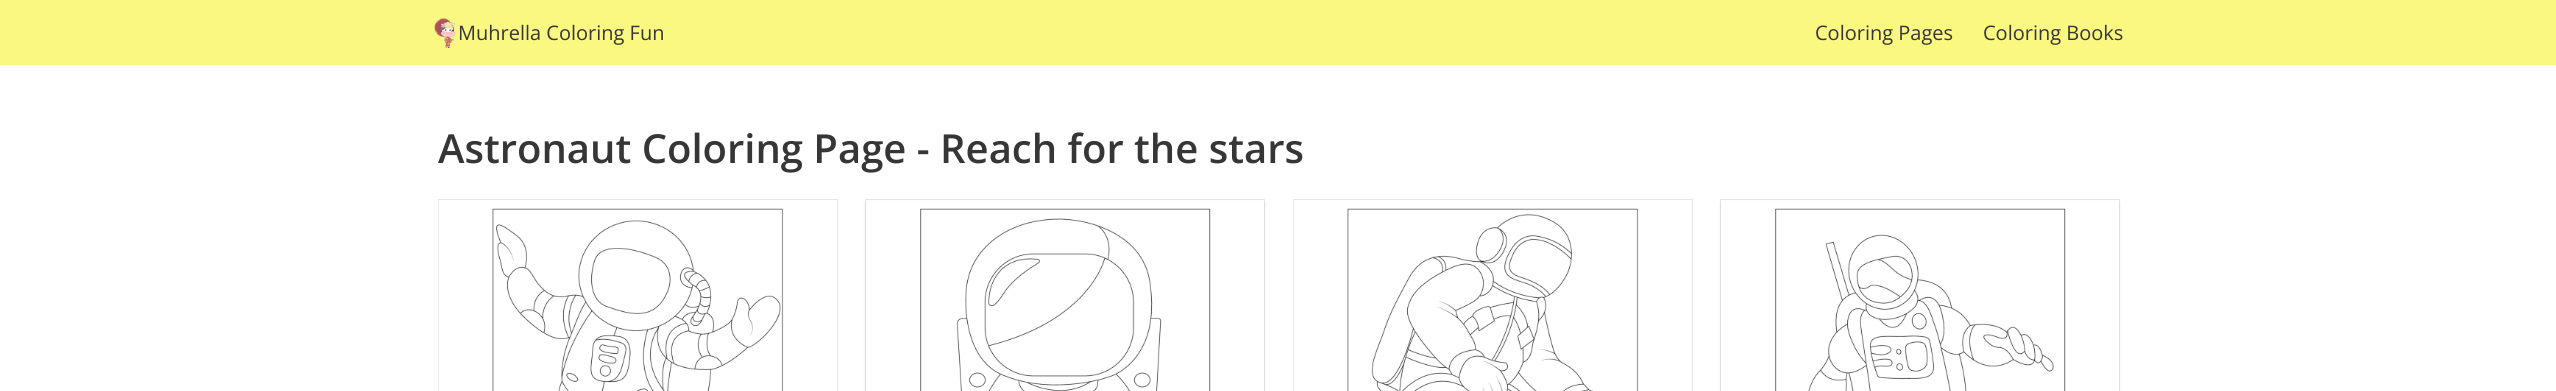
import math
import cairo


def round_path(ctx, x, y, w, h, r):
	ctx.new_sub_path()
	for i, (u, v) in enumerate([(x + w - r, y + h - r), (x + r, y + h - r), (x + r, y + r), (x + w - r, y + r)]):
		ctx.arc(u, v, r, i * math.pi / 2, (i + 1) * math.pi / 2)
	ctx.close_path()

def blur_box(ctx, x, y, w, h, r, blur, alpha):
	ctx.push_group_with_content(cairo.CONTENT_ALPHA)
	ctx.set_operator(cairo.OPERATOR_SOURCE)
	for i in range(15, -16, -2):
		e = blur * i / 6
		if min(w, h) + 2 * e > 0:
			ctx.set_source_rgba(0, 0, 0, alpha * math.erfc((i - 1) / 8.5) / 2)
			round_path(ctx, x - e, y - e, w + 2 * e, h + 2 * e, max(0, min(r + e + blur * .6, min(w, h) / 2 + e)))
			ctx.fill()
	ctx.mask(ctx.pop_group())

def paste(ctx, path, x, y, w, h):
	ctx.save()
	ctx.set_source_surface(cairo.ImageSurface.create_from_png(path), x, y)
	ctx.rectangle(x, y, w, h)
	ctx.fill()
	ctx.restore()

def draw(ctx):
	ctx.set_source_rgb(1, 1, 1)
	ctx.paint()
	ctx.set_source_rgb(0.984, 0.969, 0.51)
	ctx.rectangle(0, 0, 2556, 65)
	ctx.fill()
	paste(ctx, 'media/1.png', 434, 18, 22, 30)
	ctx.select_font_face('Open Sans')
	ctx.set_font_size(20)
	ctx.set_source_rgb(0.212, 0.212, 0.212)
	for x, y, s in [
		(458, 40, 'Muhrella Coloring Fun'),
		(1815, 40, 'Coloring Pages'),
		(1983, 40, 'Coloring Books'),
	]:
		ctx.move_to(x, y)
		ctx.show_text(s)
	ctx.select_font_face('Open Sans SemiBold')
	ctx.set_font_size(40)
	ctx.move_to(438, 163)
	ctx.show_text('Astronaut Coloring Page - Reach for the stars')
	ctx.rectangle(438.5, 199.5, 399, 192)
	ctx.set_source_rgb(0.906, 0.906, 0.906)
	ctx.set_line_width(1)
	ctx.stroke()
	paste(ctx, 'media/2.png', 438, 200, 346, 191)
	ctx.rectangle(865.5, 199.5, 399, 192)
	ctx.stroke()
	ctx.set_source_rgb(0.039, 0.039, 0.039)
	blur_box(ctx, 866, 203, 398, 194, 0, 2, 0.1)
	ctx.set_source_rgb(1, 1, 1)
	ctx.rectangle(866, 201, 398, 190)
	ctx.fill()
	paste(ctx, 'media/3.png', 920, 208, 291, 183)
	ctx.rectangle(1293.5, 199.5, 399, 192)
	ctx.set_source_rgb(0.906, 0.906, 0.906)
	ctx.stroke()
	paste(ctx, 'media/4.png', 1293, 200, 346, 191)
	ctx.rectangle(1720.5, 199.5, 399, 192)
	ctx.stroke()
	ctx.set_source_rgb(0.039, 0.039, 0.039)
	blur_box(ctx, 1721, 203, 398, 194, 0, 2, 0.1)
	ctx.set_source_rgb(1, 1, 1)
	ctx.rectangle(1721, 201, 398, 190)
	ctx.fill()
	paste(ctx, 'media/5.png', 1775, 208, 291, 183)


surface = cairo.ImageSurface(cairo.FORMAT_RGB24, 2556, 391)
ctx = cairo.Context(surface)
options = cairo.FontOptions()
options.set_hint_metrics(cairo.HINT_METRICS_OFF)
options.set_hint_style(cairo.HINT_STYLE_NONE)
ctx.set_font_options(options)
ctx.set_miter_limit(4)
draw(ctx)
surface.write_to_png('image.png')
